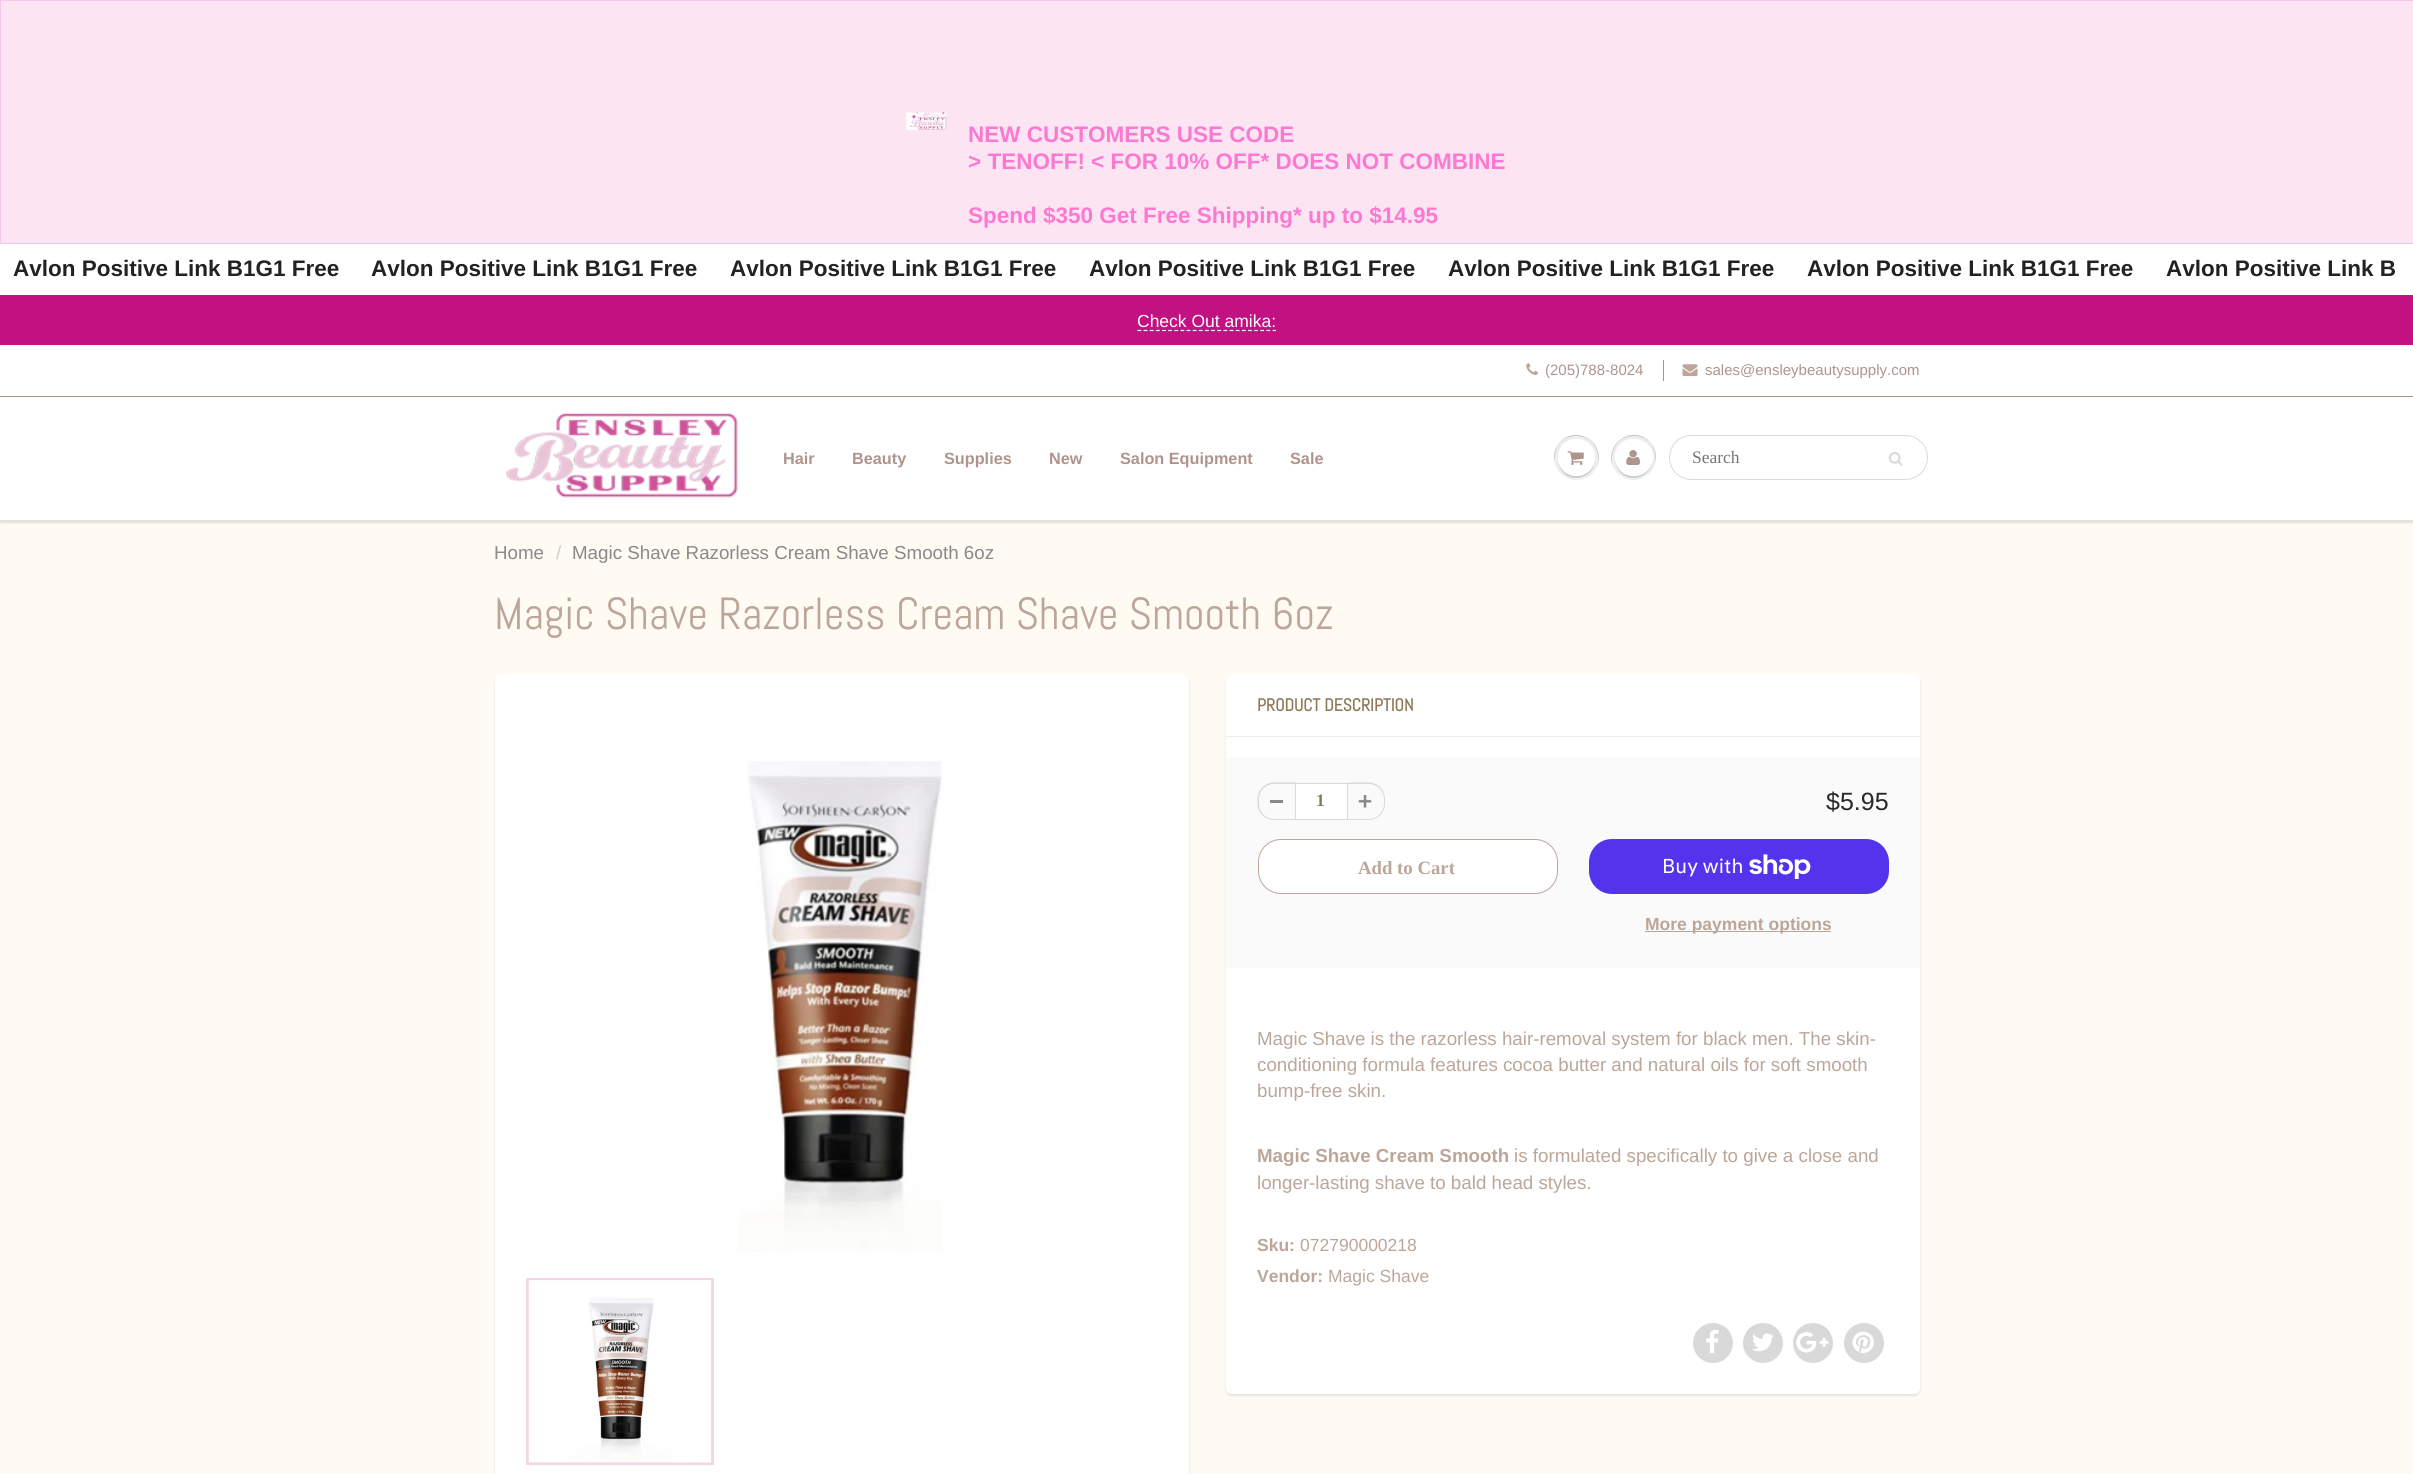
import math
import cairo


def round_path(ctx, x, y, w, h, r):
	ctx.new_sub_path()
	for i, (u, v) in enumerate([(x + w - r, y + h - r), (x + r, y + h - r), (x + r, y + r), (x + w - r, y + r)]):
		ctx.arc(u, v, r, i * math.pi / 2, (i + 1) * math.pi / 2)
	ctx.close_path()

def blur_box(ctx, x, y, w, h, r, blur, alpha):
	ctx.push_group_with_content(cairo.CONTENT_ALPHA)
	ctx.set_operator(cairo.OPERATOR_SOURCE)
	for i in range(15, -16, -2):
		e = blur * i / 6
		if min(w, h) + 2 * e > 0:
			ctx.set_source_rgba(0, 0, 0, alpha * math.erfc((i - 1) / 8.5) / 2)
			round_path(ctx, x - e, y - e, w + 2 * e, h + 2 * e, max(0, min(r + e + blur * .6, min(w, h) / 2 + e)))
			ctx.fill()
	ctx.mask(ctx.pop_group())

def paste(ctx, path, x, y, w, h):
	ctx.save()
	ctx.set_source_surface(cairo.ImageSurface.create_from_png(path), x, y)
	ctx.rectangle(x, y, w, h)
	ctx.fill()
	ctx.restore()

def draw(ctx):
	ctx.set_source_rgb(1, 1, 1)
	ctx.paint()
	ctx.set_source_rgb(0.988, 0.894, 0.953)
	ctx.rectangle(0.5, 0.5, 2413, 243)
	ctx.fill_preserve()
	ctx.set_source_rgb(0.961, 0.773, 0.906)
	ctx.set_line_width(1)
	ctx.stroke()
	paste(ctx, 'media/1.png', 906, 112, 41, 18)
	ctx.select_font_face('Liberation Sans', cairo.FONT_SLANT_NORMAL, cairo.FONT_WEIGHT_BOLD)
	ctx.set_font_size(22.5)
	ctx.set_source_rgb(0.992, 0.475, 0.82)
	for x, y, s in [
		(968, 142, 'NEW CUSTOMERS USE CODE'),
		(968, 169, '> TENOFF! < FOR 10% OFF* DOES NOT COMBINE'),
		(968, 223, 'Spend $350 Get Free Shipping* up to $14.95'),
	]:
		ctx.move_to(x, y)
		ctx.show_text(s)
	ctx.set_source_rgb(0.125, 0.133, 0.137)
	for x, y, s in [
		(13, 276, 'Avlon Positive Link B1G1 Free'),
		(371, 276, 'Avlon Positive Link B1G1 Free'),
		(730, 276, 'Avlon Positive Link B1G1 Free'),
		(1089, 276, 'Avlon Positive Link B1G1 Free'),
		(1448, 276, 'Avlon Positive Link B1G1 Free'),
		(1807, 276, 'Avlon Positive Link B1G1 Free'),
		(2166, 276, 'Avlon Positive Link B'),
	]:
		ctx.move_to(x, y)
		ctx.show_text(s)
	ctx.set_source_rgb(0.761, 0.067, 0.502)
	ctx.rectangle(0, 295, 2413, 50)
	ctx.fill()
	ctx.select_font_face('Liberation Sans')
	ctx.set_font_size(17.5)
	ctx.set_source_rgb(1, 1, 1)
	ctx.move_to(1137, 327)
	ctx.show_text('Check Out amika:')
	ctx.new_path()
	ctx.move_to(1137.5, 330.5)
	ctx.line_to(1276, 330.5)
	ctx.set_line_width(1.2)
	ctx.set_dash([3.75, 2.39])
	ctx.stroke()
	paste(ctx, 'media/2.png', 1526, 363, 12, 12)
	ctx.set_font_size(15)
	ctx.set_source_rgb(0.682, 0.58, 0.549)
	ctx.move_to(1545, 375)
	ctx.show_text('(205)788-8024')
	ctx.rectangle(1663, 360, 1, 21)
	ctx.fill()
	paste(ctx, 'media/3.png', 1682, 364, 16, 13)
	ctx.move_to(1705, 375)
	ctx.show_text('sales@ensleybeautysupply.com')
	ctx.set_source_rgb(1, 0.98, 0.949)
	ctx.rectangle(0, 520, 2413, 954)
	ctx.fill()
	ctx.save()
	ctx.rectangle(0, 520, 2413, 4)
	ctx.clip()
	ctx.set_source_rgb(0.043, 0.098, 0.11)
	blur_box(ctx, 0, 399, 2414, 124, 0, 1, 0.12)
	ctx.restore()
	ctx.set_source_rgb(0.682, 0.58, 0.549)
	ctx.rectangle(0, 396, 2413, 1)
	ctx.fill()
	paste(ctx, 'media/4.png', 506, 413, 232, 85)
	ctx.select_font_face('Liberation Sans', cairo.FONT_SLANT_NORMAL, cairo.FONT_WEIGHT_BOLD)
	ctx.set_font_size(16.25)
	for x, y, s in [
		(783, 464, 'Hair'),
		(852, 464, 'Beauty'),
		(944, 464, 'Supplies'),
		(1049, 464, 'New'),
		(1120, 464, 'Salon Equipment'),
		(1290, 464, 'Sale'),
	]:
		ctx.move_to(x, y)
		ctx.show_text(s)
	ctx.set_source_rgb(0.929, 0.937, 0.937)
	ctx.new_path()
	ctx.arc(1576.5, 457.5, 22.5, 0, 2 * math.pi)
	ctx.fill()
	ctx.set_source_rgb(0.788, 0.796, 0.796)
	ctx.new_path()
	ctx.move_to(1576, 436)
	ctx.curve_to(1594, 436, 1601, 453, 1597, 466)
	ctx.curve_to(1607, 442, 1573, 422, 1558, 445)
	ctx.curve_to(1554, 450, 1553, 457, 1555, 463)
	ctx.curve_to(1553, 450, 1560, 436, 1576, 436)
	ctx.close_path()
	ctx.fill()
	ctx.new_path()
	ctx.move_to(1558.5, 463)
	ctx.curve_to(1562.5, 485, 1595.5, 482, 1595, 458)
	ctx.curve_to(1594.5, 479, 1564.5, 483, 1558.5, 463)
	ctx.close_path()
	ctx.fill()
	ctx.set_source_rgb(1, 1, 1)
	ctx.arc(1576.5, 457.5, 18.5, 0, 2 * math.pi)
	ctx.fill()
	ctx.new_path()
	ctx.move_to(1576, 440)
	ctx.curve_to(1589.5, 440, 1595.5, 451, 1594.5, 461)
	ctx.curve_to(1598.5, 441.5, 1572.5, 430.5, 1561, 447)
	ctx.curve_to(1559, 450.5, 1558, 454.5, 1558, 458)
	ctx.curve_to(1558.5, 449, 1564.5, 440, 1576, 440)
	ctx.close_path()
	ctx.fill()
	paste(ctx, 'media/5.png', 1567, 451, 17, 14)
	ctx.set_source_rgb(0.929, 0.937, 0.937)
	ctx.arc(1633.5, 457.5, 22.5, 0, 2 * math.pi)
	ctx.fill()
	ctx.set_source_rgb(0.788, 0.796, 0.796)
	ctx.new_path()
	ctx.move_to(1634, 436)
	ctx.curve_to(1650, 436, 1657, 450, 1655, 463)
	ctx.curve_to(1657, 457, 1656, 450, 1652, 445)
	ctx.curve_to(1637, 422, 1603, 442, 1613, 466)
	ctx.curve_to(1609, 453, 1616, 436, 1634, 436)
	ctx.close_path()
	ctx.fill()
	ctx.new_path()
	ctx.move_to(1615, 458)
	ctx.curve_to(1615, 463.5, 1617, 468.5, 1620.5, 472.5)
	ctx.curve_to(1635, 487, 1659, 470.5, 1651.5, 452)
	ctx.curve_to(1657, 470, 1634.5, 484.5, 1620.5, 471)
	ctx.curve_to(1617.5, 467.5, 1615, 463, 1615, 458)
	ctx.close_path()
	ctx.fill()
	ctx.set_source_rgb(1, 1, 1)
	round_path(ctx, 1615, 439, 38, 37, 18.5)
	ctx.fill()
	ctx.new_path()
	ctx.move_to(1634, 440)
	ctx.curve_to(1649, 440, 1655, 455, 1651, 466)
	ctx.curve_to(1662, 446, 1631, 428, 1618, 447)
	ctx.curve_to(1615, 451, 1614, 456, 1615, 461)
	ctx.curve_to(1614, 451, 1621, 440, 1634, 440)
	ctx.close_path()
	ctx.fill()
	paste(ctx, 'media/6.png', 1626, 450, 14, 15)
	round_path(ctx, 1669.5, 435.5, 258, 44, 22)
	ctx.set_source_rgb(0.843, 0.859, 0.859)
	ctx.set_line_width(1)
	ctx.set_dash([])
	ctx.stroke()
	ctx.select_font_face('Liberation Serif')
	ctx.set_font_size(17.5)
	ctx.set_source_rgb(0.459, 0.459, 0.459)
	ctx.move_to(1692, 463)
	ctx.show_text('Search')
	paste(ctx, 'media/7.png', 1888, 452, 15, 14)
	ctx.select_font_face('Liberation Sans')
	ctx.set_font_size(18.75)
	ctx.set_source_rgb(0.537, 0.537, 0.537)
	ctx.move_to(494, 559)
	ctx.show_text('Home')
	ctx.set_source_rgb(0.8, 0.8, 0.8)
	ctx.move_to(556, 559)
	ctx.show_text('/')
	ctx.set_source_rgb(0.537, 0.537, 0.537)
	ctx.move_to(572, 559)
	ctx.show_text('Magic Shave Razorless Cream Shave Smooth 6oz')
	ctx.select_font_face('Abel')
	ctx.set_font_size(45)
	ctx.set_source_rgb(0.737, 0.651, 0.6)
	ctx.move_to(494, 629)
	ctx.show_text('Magic Shave Razorless Cream Shave Smooth 6oz')
	ctx.set_source_rgb(0.043, 0.098, 0.11)
	blur_box(ctx, 495, 676, 694, 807, 6, 1, 0.1)
	ctx.set_source_rgb(1, 1, 1)
	round_path(ctx, 495, 674, 694, 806, 6)
	ctx.fill()
	paste(ctx, 'media/8.png', 738, 761, 204, 491)
	ctx.rectangle(527.5, 1279.5, 185, 184)
	ctx.set_source_rgb(0.953, 0.839, 0.898)
	ctx.set_line_width(3)
	ctx.stroke()
	paste(ctx, 'media/9.png', 528, 1280, 184, 183)
	ctx.set_source_rgb(0.043, 0.098, 0.11)
	blur_box(ctx, 1226, 676, 694, 720, 6, 1, 0.1)
	ctx.set_source_rgb(1, 1, 1)
	round_path(ctx, 1226, 674, 694, 720, 6)
	ctx.fill()
	ctx.set_source_rgb(0.937, 0.937, 0.937)
	ctx.rectangle(1226, 736, 694, 1)
	ctx.fill()
	ctx.select_font_face('Abel', cairo.FONT_SLANT_NORMAL, cairo.FONT_WEIGHT_BOLD)
	ctx.set_font_size(17.5)
	ctx.set_source_rgb(0.549, 0.475, 0.345)
	ctx.move_to(1257, 711)
	ctx.show_text('PRODUCT DESCRIPTION')
	ctx.set_source_rgb(0.98, 0.98, 0.98)
	ctx.rectangle(1226, 758, 694, 210)
	ctx.fill()
	ctx.set_source_rgb(0.537, 0.537, 0.537)
	ctx.rectangle(1270, 800, 13, 3)
	ctx.fill()
	ctx.set_source_rgb(0.843, 0.859, 0.859)
	ctx.set_fill_rule(cairo.FILL_RULE_EVEN_ODD)
	ctx.new_path()
	ctx.move_to(1274, 782.5)
	ctx.line_to(1295, 782.5)
	ctx.line_to(1295, 820)
	ctx.line_to(1274, 820)
	ctx.curve_to(1265, 820, 1257.5, 812.5, 1257.5, 804)
	ctx.line_to(1257.5, 799)
	ctx.curve_to(1257.5, 790, 1265, 782.5, 1274, 782.5)
	ctx.close_path()
	ctx.move_to(1274, 784)
	ctx.line_to(1295, 784)
	ctx.line_to(1295, 819)
	ctx.line_to(1274, 819)
	ctx.curve_to(1265.5, 819, 1259, 812, 1259, 804)
	ctx.line_to(1259, 799)
	ctx.curve_to(1259, 790.5, 1265.5, 784, 1274, 784)
	ctx.close_path()
	ctx.fill()
	ctx.set_source_rgb(1, 1, 1)
	ctx.rectangle(1295.5, 783.5, 52, 36)
	ctx.fill_preserve()
	ctx.set_source_rgb(0.843, 0.859, 0.859)
	ctx.set_line_width(1)
	ctx.stroke()
	ctx.select_font_face('Liberation Serif', cairo.FONT_SLANT_NORMAL, cairo.FONT_WEIGHT_BOLD)
	ctx.set_source_rgb(0.549, 0.475, 0.345)
	ctx.move_to(1316, 806)
	ctx.show_text('1')
	paste(ctx, 'media/10.png', 1358, 795, 14, 13)
	ctx.set_source_rgb(0.843, 0.859, 0.859)
	ctx.new_path()
	ctx.move_to(1347.5, 782.5)
	ctx.line_to(1369, 782.5)
	ctx.curve_to(1377.5, 782.5, 1385, 790, 1385, 799)
	ctx.line_to(1385, 804)
	ctx.curve_to(1385, 812.5, 1377.5, 820, 1369, 820)
	ctx.line_to(1347.5, 820)
	ctx.close_path()
	ctx.move_to(1347.5, 784)
	ctx.line_to(1369, 784)
	ctx.curve_to(1377, 784, 1384, 790.5, 1384, 799)
	ctx.line_to(1384, 804)
	ctx.curve_to(1384, 812, 1377, 819, 1369, 819)
	ctx.line_to(1347.5, 819)
	ctx.close_path()
	ctx.fill()
	ctx.select_font_face('Liberation Sans')
	ctx.set_font_size(25)
	ctx.set_source_rgb(0.157, 0.157, 0.153)
	ctx.move_to(1826, 810)
	ctx.show_text('$5.95')
	ctx.set_source_rgb(1, 1, 1)
	round_path(ctx, 1258.5, 839.5, 299, 54, 22.5)
	ctx.fill_preserve()
	ctx.set_source_rgb(0.737, 0.651, 0.6)
	ctx.stroke()
	ctx.select_font_face('Liberation Serif', cairo.FONT_SLANT_NORMAL, cairo.FONT_WEIGHT_BOLD)
	ctx.set_font_size(18.75)
	ctx.move_to(1358, 874)
	ctx.show_text('Add to Cart')
	ctx.set_source_rgb(0.329, 0.2, 0.922)
	round_path(ctx, 1589, 839, 300, 55, 23)
	ctx.fill()
	ctx.select_font_face('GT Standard')
	ctx.set_font_size(20)
	ctx.set_source_rgb(1, 1, 1)
	ctx.move_to(1662, 873)
	ctx.show_text('Buy with')
	paste(ctx, 'media/11.png', 1749, 854, 62, 25)
	ctx.set_source_rgb(0.737, 0.651, 0.6)
	ctx.rectangle(1645, 931, 186, 1)
	ctx.fill()
	ctx.select_font_face('Liberation Sans', cairo.FONT_SLANT_NORMAL, cairo.FONT_WEIGHT_BOLD)
	ctx.set_font_size(17.5)
	ctx.move_to(1645, 930)
	ctx.show_text('More payment options')
	ctx.select_font_face('Liberation Sans')
	ctx.set_font_size(18.75)
	for x, y, s in [
		(1257, 1045, 'Magic Shave is the razorless hair-removal system for black men. The skin-'),
		(1257, 1071, 'conditioning formula features cocoa butter and natural oils for soft smooth'),
		(1257, 1097, 'bump-free skin.'),
	]:
		ctx.move_to(x, y)
		ctx.show_text(s)
	ctx.select_font_face('Liberation Sans', cairo.FONT_SLANT_NORMAL, cairo.FONT_WEIGHT_BOLD)
	ctx.move_to(1257, 1162)
	ctx.show_text('Magic Shave Cream Smooth')
	ctx.select_font_face('Liberation Sans')
	ctx.move_to(1514, 1162)
	ctx.show_text('is formulated specifically to give a close and')
	ctx.move_to(1257, 1189)
	ctx.show_text('longer-lasting shave to bald head styles.')
	ctx.select_font_face('Liberation Sans', cairo.FONT_SLANT_NORMAL, cairo.FONT_WEIGHT_BOLD)
	ctx.set_font_size(17.5)
	ctx.move_to(1257, 1251)
	ctx.show_text('Sku:')
	ctx.select_font_face('Liberation Sans')
	ctx.move_to(1300, 1251)
	ctx.show_text('072790000218')
	ctx.select_font_face('Liberation Sans', cairo.FONT_SLANT_NORMAL, cairo.FONT_WEIGHT_BOLD)
	ctx.move_to(1257, 1282)
	ctx.show_text('Vendor:')
	ctx.select_font_face('Liberation Sans')
	ctx.move_to(1328, 1282)
	ctx.show_text('Magic Shave')
	ctx.set_source_rgb(0.851, 0.851, 0.851)
	ctx.new_path()
	ctx.arc(1713, 1343, 20, 0, 2 * math.pi)
	ctx.fill()
	paste(ctx, 'media/12.png', 1706, 1329, 13, 24)
	ctx.arc(1763, 1343, 20, 0, 2 * math.pi)
	ctx.fill()
	paste(ctx, 'media/13.png', 1752, 1333, 22, 19)
	ctx.arc(1813, 1343, 20, 0, 2 * math.pi)
	ctx.fill()
	paste(ctx, 'media/14.png', 1796, 1332, 33, 21)
	ctx.arc(1864, 1343, 20, 0, 2 * math.pi)
	ctx.fill()
	paste(ctx, 'media/15.png', 1852, 1331, 22, 22)


surface = cairo.ImageSurface(cairo.FORMAT_RGB24, 2413, 1474)
ctx = cairo.Context(surface)
options = cairo.FontOptions()
options.set_hint_metrics(cairo.HINT_METRICS_OFF)
options.set_hint_style(cairo.HINT_STYLE_NONE)
ctx.set_font_options(options)
ctx.set_miter_limit(4)
draw(ctx)
surface.write_to_png('image.png')
